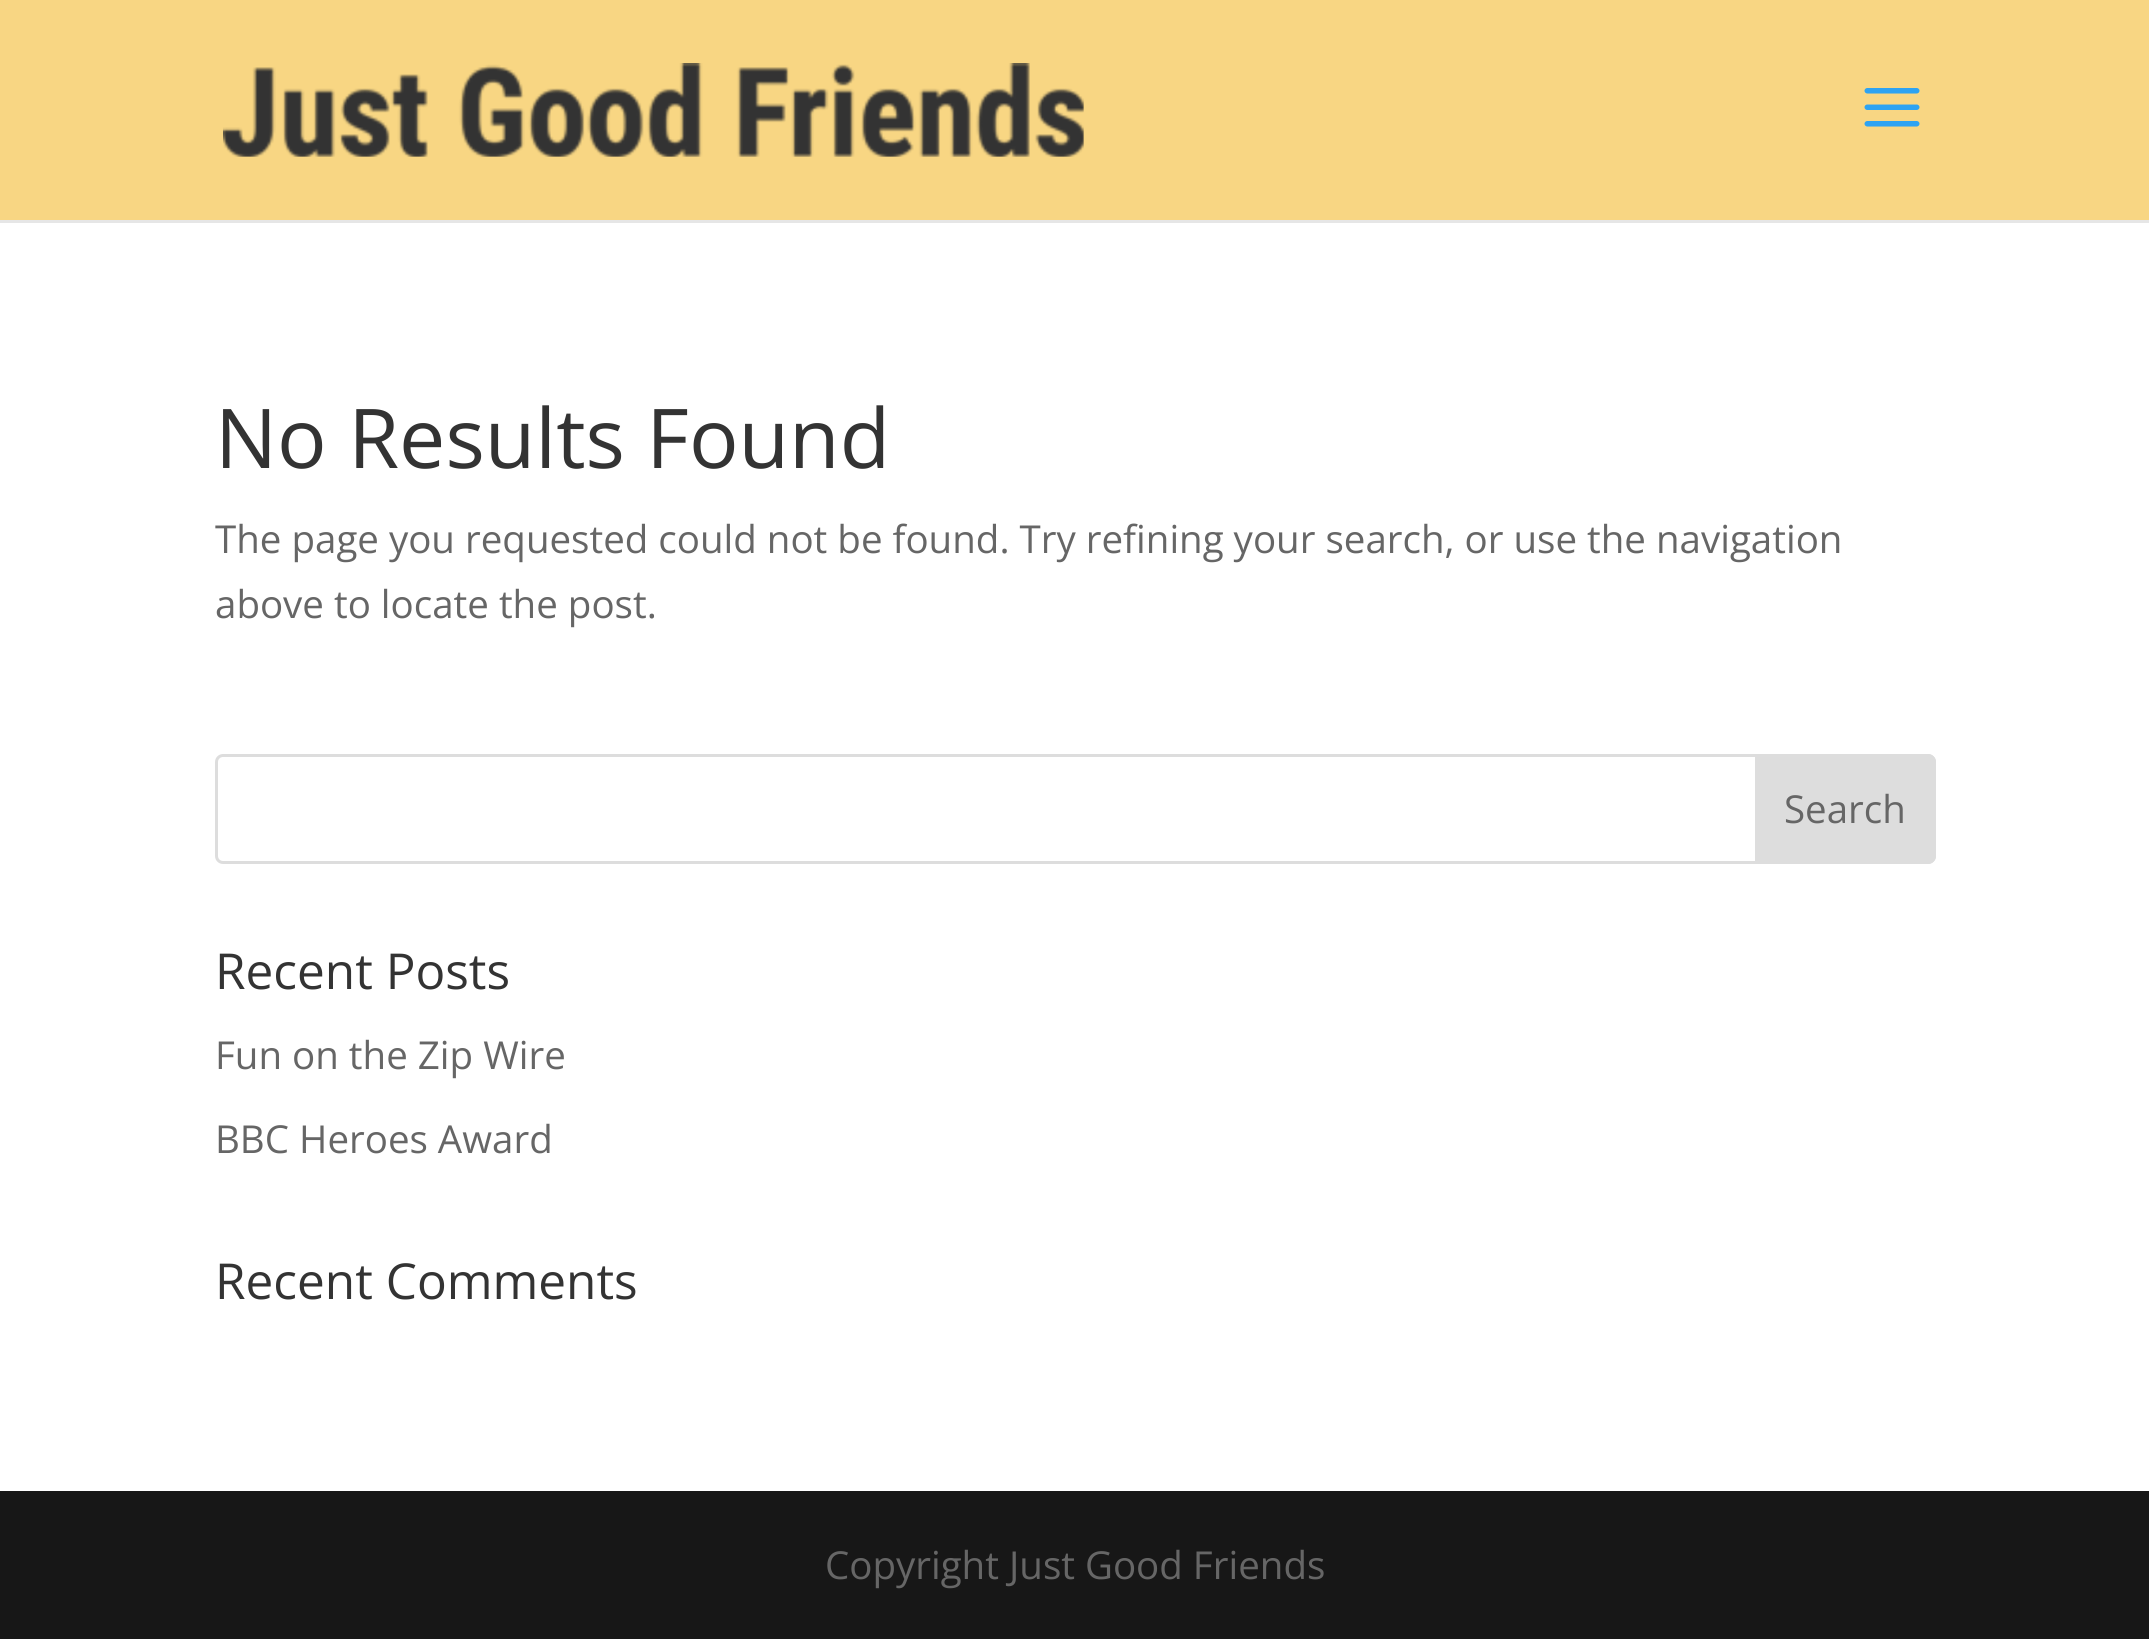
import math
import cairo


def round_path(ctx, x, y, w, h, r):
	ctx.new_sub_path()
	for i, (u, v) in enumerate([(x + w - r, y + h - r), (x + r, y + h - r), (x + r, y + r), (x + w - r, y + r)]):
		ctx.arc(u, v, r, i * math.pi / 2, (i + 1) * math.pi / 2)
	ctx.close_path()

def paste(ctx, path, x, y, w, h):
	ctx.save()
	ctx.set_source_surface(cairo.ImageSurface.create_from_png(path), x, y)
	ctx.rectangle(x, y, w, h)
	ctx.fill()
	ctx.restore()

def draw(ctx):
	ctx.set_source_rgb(1, 1, 1)
	ctx.paint()
	ctx.set_source_rgb(0.902, 0.902, 0.902)
	ctx.new_path()
	ctx.move_to(0, 220)
	ctx.line_to(0, 223)
	ctx.line_to(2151, 223)
	ctx.line_to(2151, 3)
	ctx.line_to(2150, 3)
	ctx.line_to(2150, 220)
	ctx.close_path()
	ctx.fill()
	ctx.set_source_rgb(0.969, 0.839, 0.514)
	ctx.rectangle(0, 0, 2149, 220)
	ctx.fill()
	paste(ctx, 'media/1.png', 223, 63, 861, 94)
	paste(ctx, 'media/2.png', 1864, 88, 56, 39)
	ctx.select_font_face('Open Sans')
	ctx.set_font_size(82.5)
	ctx.set_source_rgb(0.2, 0.2, 0.2)
	ctx.move_to(215, 468)
	ctx.show_text('No Results Found')
	ctx.set_font_size(38.5)
	ctx.set_source_rgb(0.4, 0.4, 0.4)
	ctx.move_to(215, 553)
	ctx.show_text('The page you requested could not be found. Try refining your search, or use the navigation')
	ctx.move_to(215, 618)
	ctx.show_text('above to locate the post.')
	round_path(ctx, 216.5, 755.5, 1718, 107, 6.5)
	ctx.set_source_rgb(0.867, 0.867, 0.867)
	ctx.set_line_width(3)
	ctx.stroke()
	ctx.new_path()
	ctx.move_to(1756.5, 755.5)
	ctx.line_to(1928, 755.5)
	ctx.curve_to(1931.5, 755.5, 1934.5, 758.5, 1934.5, 762)
	ctx.line_to(1934.5, 856)
	ctx.curve_to(1934.5, 859.5, 1931.5, 862.5, 1928, 862.5)
	ctx.line_to(1756.5, 862.5)
	ctx.close_path()
	ctx.fill_preserve()
	ctx.stroke()
	ctx.set_source_rgb(0.4, 0.4, 0.4)
	ctx.move_to(1784, 823)
	ctx.show_text('Search')
	ctx.set_font_size(49.5)
	ctx.set_source_rgb(0.2, 0.2, 0.2)
	ctx.move_to(215, 989)
	ctx.show_text('Recent Posts')
	ctx.set_font_size(38.5)
	ctx.set_source_rgb(0.4, 0.4, 0.4)
	ctx.move_to(215, 1069)
	ctx.show_text('Fun on the Zip Wire')
	ctx.move_to(215, 1153)
	ctx.show_text('BBC Heroes Award')
	ctx.set_font_size(49.5)
	ctx.set_source_rgb(0.2, 0.2, 0.2)
	ctx.move_to(215, 1299)
	ctx.show_text('Recent Comments')
	ctx.set_source_rgb(0.09, 0.09, 0.09)
	ctx.rectangle(0, 1491, 2149, 148)
	ctx.fill()
	ctx.set_font_size(38.5)
	ctx.set_source_rgb(0.4, 0.4, 0.4)
	ctx.move_to(825, 1579)
	ctx.show_text('Copyright Just Good Friends')


surface = cairo.ImageSurface(cairo.FORMAT_RGB24, 2149, 1639)
ctx = cairo.Context(surface)
options = cairo.FontOptions()
options.set_hint_metrics(cairo.HINT_METRICS_OFF)
options.set_hint_style(cairo.HINT_STYLE_NONE)
ctx.set_font_options(options)
ctx.set_miter_limit(4)
draw(ctx)
surface.write_to_png('image.png')
